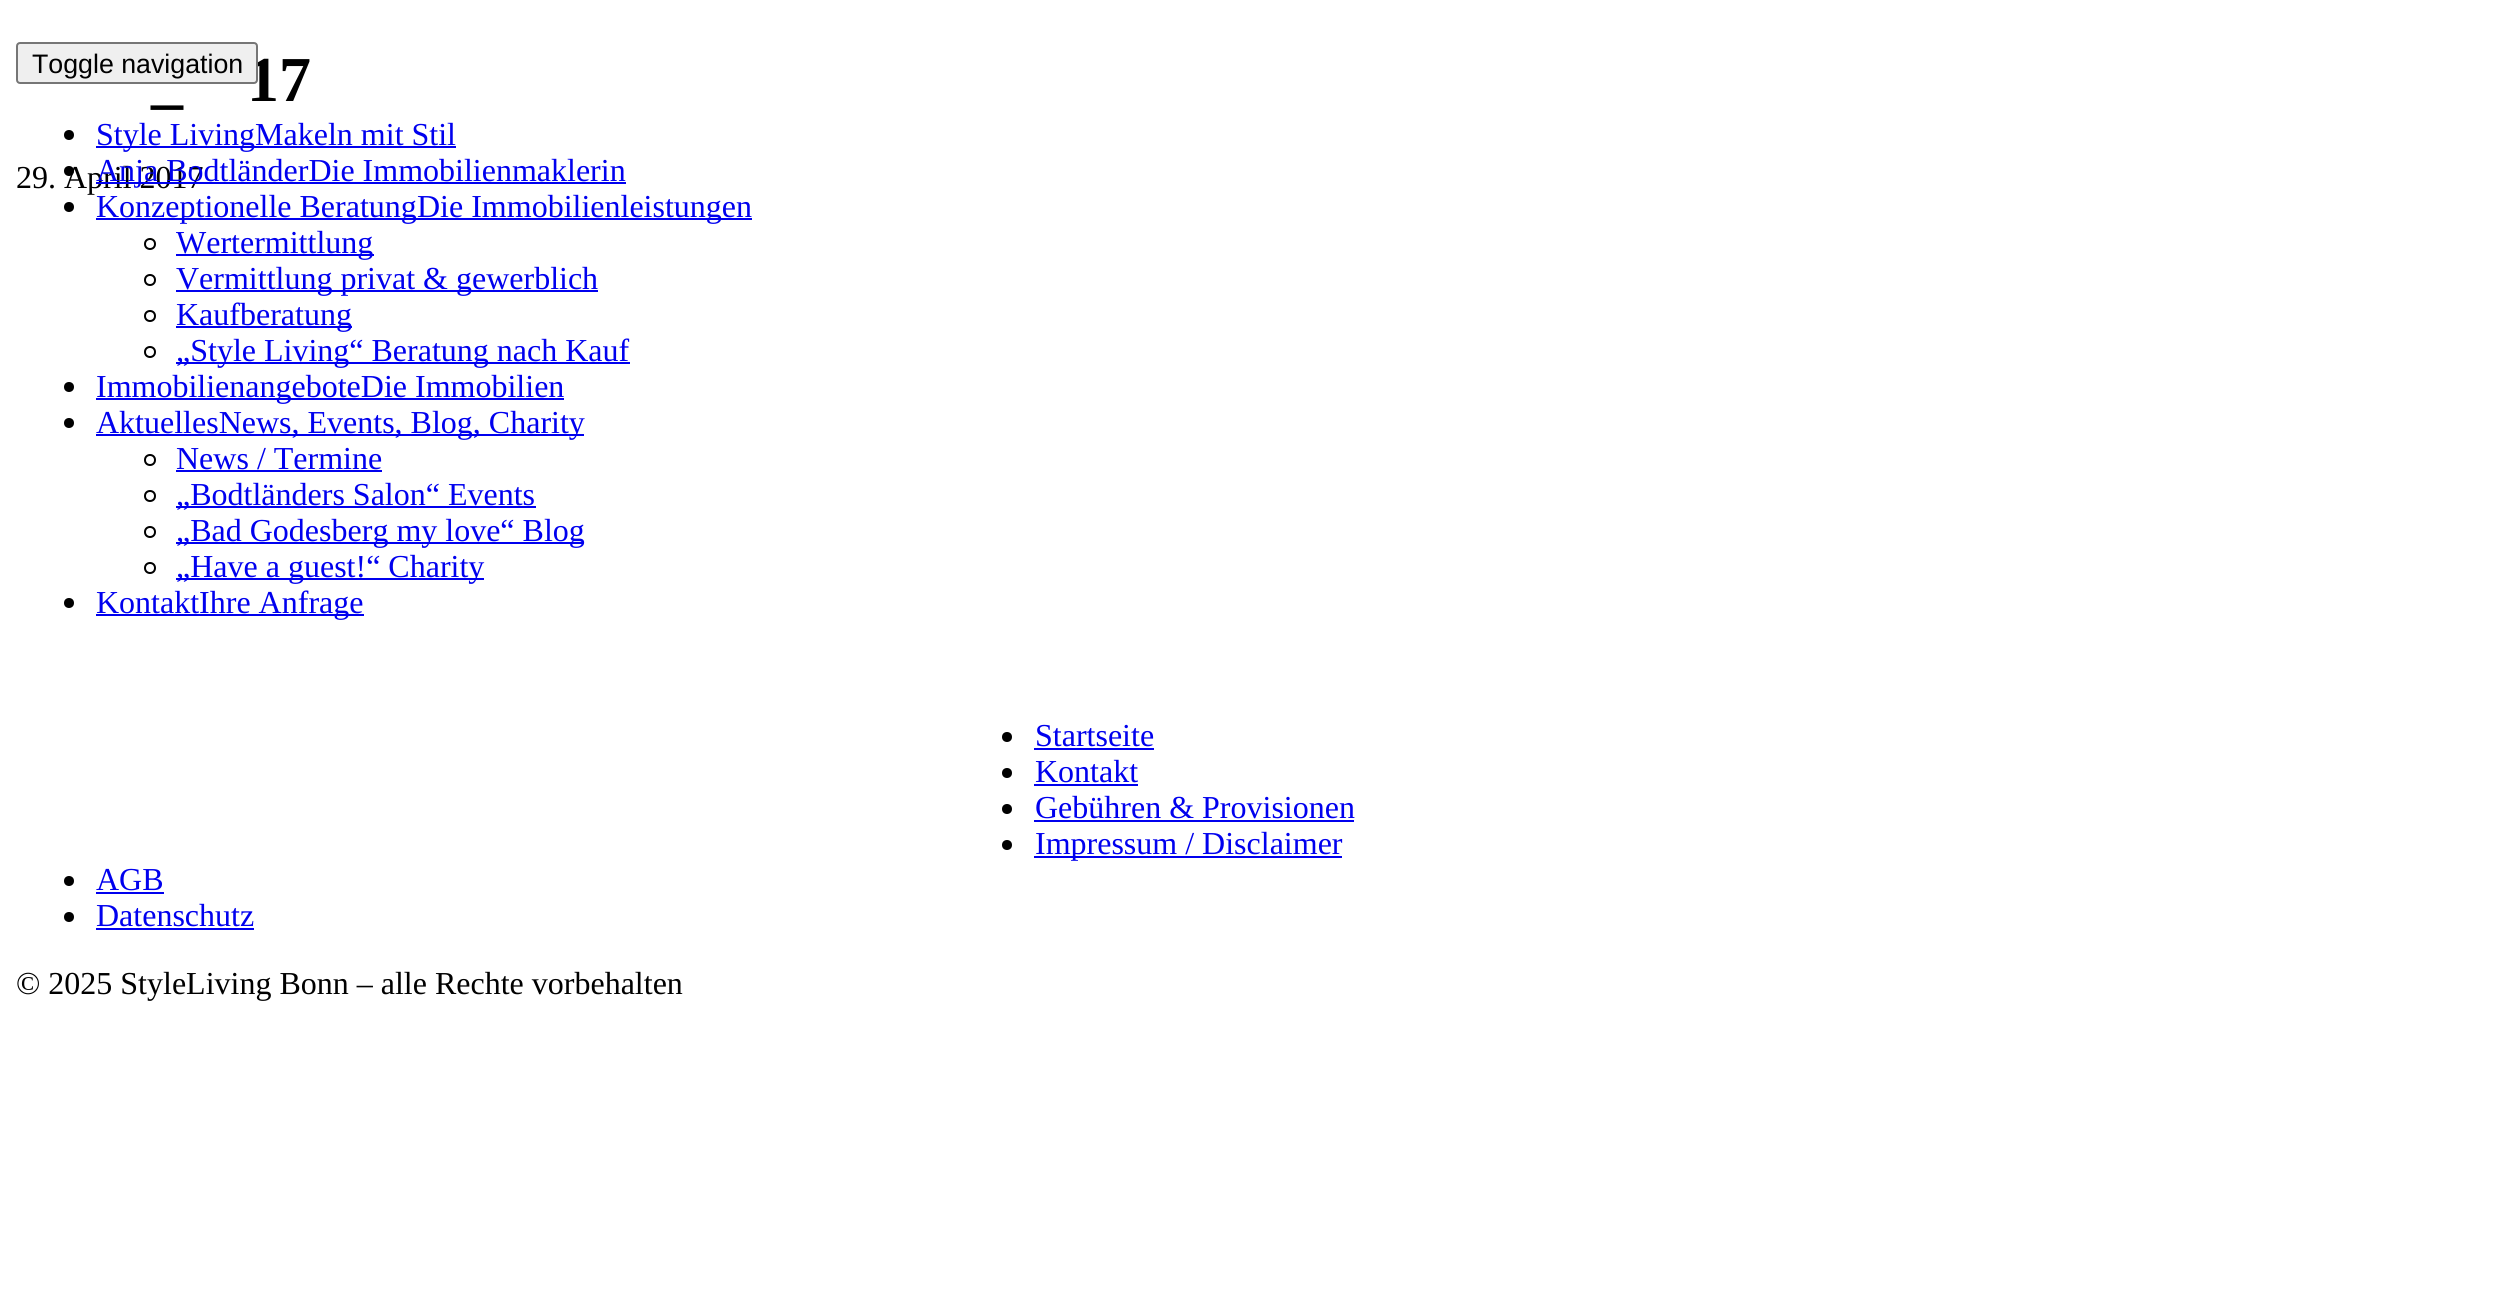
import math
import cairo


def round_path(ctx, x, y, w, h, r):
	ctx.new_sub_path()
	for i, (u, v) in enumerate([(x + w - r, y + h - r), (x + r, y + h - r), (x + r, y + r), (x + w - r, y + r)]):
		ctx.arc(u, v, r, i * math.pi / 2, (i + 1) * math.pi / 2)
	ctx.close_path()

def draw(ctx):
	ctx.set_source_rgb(1, 1, 1)
	ctx.paint()
	ctx.select_font_face('Liberation Serif', cairo.FONT_SLANT_NORMAL, cairo.FONT_WEIGHT_BOLD)
	ctx.set_font_size(64)
	ctx.set_source_rgb(0, 0, 0)
	ctx.move_to(247, 101)
	ctx.show_text('17')
	ctx.set_source_rgb(0.937, 0.937, 0.937)
	round_path(ctx, 17, 43, 240, 40, 3)
	ctx.fill_preserve()
	ctx.set_source_rgb(0.463, 0.463, 0.463)
	ctx.stroke()
	ctx.select_font_face('Liberation Sans')
	ctx.set_font_size(26.75)
	ctx.set_source_rgb(0, 0, 0)
	ctx.move_to(32, 73)
	ctx.show_text('Toggle navigation')
	ctx.new_path()
	ctx.arc(69, 135, 5, 0, 2 * math.pi)
	ctx.fill()
	ctx.set_source_rgb(0, 0, 0.933)
	ctx.rectangle(96, 146, 360, 2)
	ctx.fill()
	ctx.select_font_face('Liberation Serif')
	ctx.set_font_size(32)
	ctx.move_to(96, 145)
	ctx.show_text('Style LivingMakeln mit Stil')
	ctx.set_source_rgb(0, 0, 0)
	ctx.new_path()
	ctx.arc(69, 171, 5, 0, 2 * math.pi)
	ctx.fill()
	ctx.move_to(16, 188)
	ctx.show_text('29. April 2017')
	ctx.set_source_rgb(0, 0, 0.933)
	ctx.rectangle(96, 182, 212, 2)
	ctx.fill()
	ctx.move_to(96, 181)
	ctx.show_text('Anja BodtländerDie Immobilienmaklerin')
	ctx.rectangle(308, 182, 318, 2)
	ctx.fill()
	ctx.set_source_rgb(0, 0, 0)
	ctx.arc(69, 207, 5, 0, 2 * math.pi)
	ctx.fill()
	ctx.set_source_rgb(0, 0, 0.933)
	ctx.rectangle(96, 218, 320, 2)
	ctx.fill()
	ctx.move_to(96, 217)
	ctx.show_text('Konzeptionelle Beratung')
	ctx.rectangle(416, 218, 336, 2)
	ctx.fill()
	ctx.move_to(417, 217)
	ctx.show_text('Die Immobilienleistungen')
	ctx.new_path()
	ctx.arc(150, 244, 5, 0, 2 * math.pi)
	ctx.set_source_rgb(0, 0, 0)
	ctx.stroke()
	ctx.set_source_rgb(0, 0, 0.933)
	ctx.rectangle(176, 254, 198, 2)
	ctx.fill()
	ctx.move_to(176, 253)
	ctx.show_text('Wertermittlung')
	ctx.new_path()
	ctx.arc(150, 280, 5, 0, 2 * math.pi)
	ctx.set_source_rgb(0, 0, 0)
	ctx.stroke()
	ctx.set_source_rgb(0, 0, 0.933)
	ctx.rectangle(176, 290, 422, 2)
	ctx.fill()
	ctx.move_to(176, 289)
	ctx.show_text('Vermittlung privat & gewerblich')
	ctx.new_path()
	ctx.arc(150, 316, 5, 0, 2 * math.pi)
	ctx.set_source_rgb(0, 0, 0)
	ctx.stroke()
	ctx.set_source_rgb(0, 0, 0.933)
	ctx.rectangle(176, 326, 176, 2)
	ctx.fill()
	ctx.move_to(176, 325)
	ctx.show_text('Kaufberatung')
	ctx.new_path()
	ctx.arc(150, 352, 5, 0, 2 * math.pi)
	ctx.set_source_rgb(0, 0, 0)
	ctx.stroke()
	ctx.set_source_rgb(0, 0, 0.933)
	ctx.rectangle(176, 362, 454, 2)
	ctx.fill()
	ctx.move_to(176, 361)
	ctx.show_text('„Style Living“ Beratung nach Kauf')
	ctx.set_source_rgb(0, 0, 0)
	ctx.new_path()
	ctx.arc(69, 387, 5, 0, 2 * math.pi)
	ctx.fill()
	ctx.set_source_rgb(0, 0, 0.933)
	ctx.rectangle(96, 398, 468, 2)
	ctx.fill()
	ctx.move_to(96, 397)
	ctx.show_text('ImmobilienangeboteDie Immobilien')
	ctx.set_source_rgb(0, 0, 0)
	ctx.new_path()
	ctx.arc(69, 423, 5, 0, 2 * math.pi)
	ctx.fill()
	ctx.set_source_rgb(0, 0, 0.933)
	ctx.rectangle(96, 434, 488, 2)
	ctx.fill()
	ctx.move_to(96, 433)
	ctx.show_text('AktuellesNews, Events, Blog, Charity')
	ctx.new_path()
	ctx.arc(150, 460, 5, 0, 2 * math.pi)
	ctx.set_source_rgb(0, 0, 0)
	ctx.stroke()
	ctx.set_source_rgb(0, 0, 0.933)
	ctx.move_to(176, 469)
	ctx.show_text('News / Termine')
	ctx.rectangle(176, 470, 206, 2)
	ctx.fill()
	ctx.arc(150, 496, 5, 0, 2 * math.pi)
	ctx.set_source_rgb(0, 0, 0)
	ctx.stroke()
	ctx.set_source_rgb(0, 0, 0.933)
	ctx.rectangle(176, 506, 360, 2)
	ctx.fill()
	ctx.move_to(176, 505)
	ctx.show_text('„Bodtländers Salon“ Events')
	ctx.new_path()
	ctx.arc(150, 532, 5, 0, 2 * math.pi)
	ctx.set_source_rgb(0, 0, 0)
	ctx.stroke()
	ctx.set_source_rgb(0, 0, 0.933)
	ctx.rectangle(176, 542, 408, 2)
	ctx.fill()
	ctx.move_to(176, 541)
	ctx.show_text('„Bad Godesberg my love“ Blog')
	ctx.new_path()
	ctx.arc(150, 568, 5, 0, 2 * math.pi)
	ctx.set_source_rgb(0, 0, 0)
	ctx.stroke()
	ctx.set_source_rgb(0, 0, 0.933)
	ctx.rectangle(176, 578, 308, 2)
	ctx.fill()
	ctx.move_to(176, 577)
	ctx.show_text('„Have a guest!“ Charity')
	ctx.set_source_rgb(0, 0, 0)
	ctx.new_path()
	ctx.arc(69, 603, 5, 0, 2 * math.pi)
	ctx.fill()
	ctx.set_source_rgb(0, 0, 0.933)
	ctx.rectangle(96, 614, 268, 2)
	ctx.fill()
	ctx.move_to(96, 613)
	ctx.show_text('KontaktIhre Anfrage')
	ctx.select_font_face('Liberation Serif', cairo.FONT_SLANT_NORMAL, cairo.FONT_WEIGHT_BOLD)
	ctx.set_font_size(64)
	ctx.set_source_rgb(0, 0, 0)
	ctx.move_to(151, 101)
	ctx.show_text('_')
	ctx.new_path()
	ctx.arc(1007, 737, 5, 0, 2 * math.pi)
	ctx.fill()
	ctx.select_font_face('Liberation Serif')
	ctx.set_font_size(32)
	ctx.set_source_rgb(0, 0, 0.933)
	ctx.move_to(1035, 746)
	ctx.show_text('Startseite')
	ctx.rectangle(1034, 748, 120, 2)
	ctx.fill()
	ctx.set_source_rgb(0, 0, 0)
	ctx.arc(1007, 773, 5, 0, 2 * math.pi)
	ctx.fill()
	ctx.set_source_rgb(0, 0, 0.933)
	ctx.move_to(1035, 782)
	ctx.show_text('Kontakt')
	ctx.rectangle(1034, 784, 104, 2)
	ctx.fill()
	ctx.set_source_rgb(0, 0, 0)
	ctx.arc(1007, 809, 5, 0, 2 * math.pi)
	ctx.fill()
	ctx.set_source_rgb(0, 0, 0.933)
	ctx.move_to(1035, 818)
	ctx.show_text('Gebühren & Provisionen')
	ctx.rectangle(1034, 820, 320, 2)
	ctx.fill()
	ctx.set_source_rgb(0, 0, 0)
	ctx.arc(1007, 845, 5, 0, 2 * math.pi)
	ctx.fill()
	ctx.set_source_rgb(0, 0, 0.933)
	ctx.rectangle(1034, 856, 308, 2)
	ctx.fill()
	ctx.move_to(1035, 854)
	ctx.show_text('Impressum / Disclaimer')
	ctx.set_source_rgb(0, 0, 0)
	ctx.new_path()
	ctx.arc(69, 881, 5, 0, 2 * math.pi)
	ctx.fill()
	ctx.set_source_rgb(0, 0, 0.933)
	ctx.move_to(96, 890)
	ctx.show_text('AGB')
	ctx.rectangle(96, 892, 68, 2)
	ctx.fill()
	ctx.set_source_rgb(0, 0, 0)
	ctx.arc(69, 917, 5, 0, 2 * math.pi)
	ctx.fill()
	ctx.set_source_rgb(0, 0, 0.933)
	ctx.move_to(96, 926)
	ctx.show_text('Datenschutz')
	ctx.rectangle(96, 928, 158, 2)
	ctx.fill()
	ctx.set_source_rgb(0, 0, 0)
	ctx.move_to(16, 994)
	ctx.show_text('© 2025 StyleLiving Bonn – alle Rechte vorbehalten')


surface = cairo.ImageSurface(cairo.FORMAT_RGB24, 2501, 1293)
ctx = cairo.Context(surface)
options = cairo.FontOptions()
options.set_hint_metrics(cairo.HINT_METRICS_OFF)
options.set_hint_style(cairo.HINT_STYLE_NONE)
ctx.set_font_options(options)
ctx.set_miter_limit(4)
draw(ctx)
surface.write_to_png('image.png')
